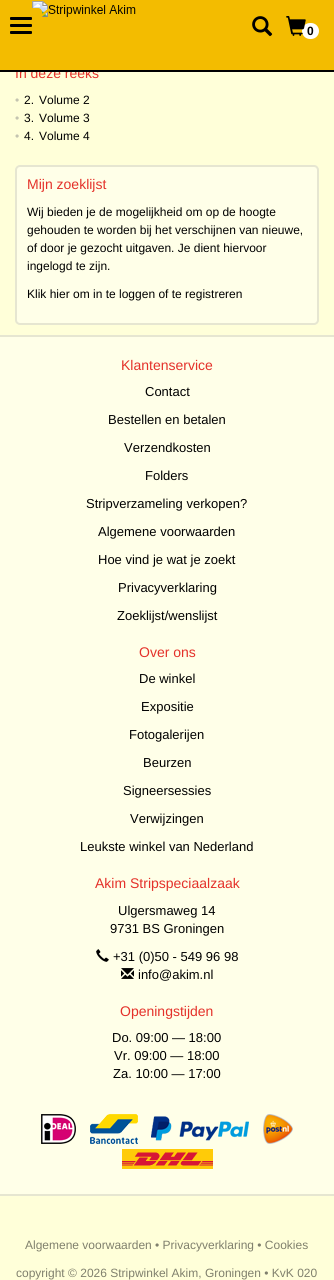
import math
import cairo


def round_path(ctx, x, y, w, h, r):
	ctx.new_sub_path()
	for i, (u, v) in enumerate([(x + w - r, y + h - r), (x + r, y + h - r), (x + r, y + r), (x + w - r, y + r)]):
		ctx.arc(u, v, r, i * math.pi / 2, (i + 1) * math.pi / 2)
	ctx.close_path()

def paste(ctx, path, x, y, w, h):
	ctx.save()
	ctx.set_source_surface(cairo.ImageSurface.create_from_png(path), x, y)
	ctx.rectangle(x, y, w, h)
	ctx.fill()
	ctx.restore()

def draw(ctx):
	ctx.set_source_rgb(1, 1, 0.851)
	ctx.paint()
	ctx.select_font_face('Liberation Sans')
	ctx.set_font_size(14)
	ctx.set_source_rgb(0.894, 0.192, 0.165)
	ctx.move_to(15, 78)
	ctx.show_text('In deze reeks')
	ctx.set_source_rgb(0.953, 0.737, 0)
	ctx.rectangle(0, 0, 334, 70)
	ctx.fill()
	ctx.set_source_rgb(0, 0, 0)
	ctx.rectangle(0, 70, 334, 2)
	ctx.fill()
	paste(ctx, 'media/1.png', 32, 1, 104, 16)
	ctx.set_source_rgb(0.953, 0.737, 0)
	round_path(ctx, 0, 8, 42, 35, 4)
	ctx.fill()
	ctx.set_source_rgb(0, 0, 0)
	round_path(ctx, 10, 17, 22, 3, 1)
	ctx.fill()
	round_path(ctx, 10, 24, 22, 3, 1)
	ctx.fill()
	round_path(ctx, 10, 31, 22, 3, 1)
	ctx.fill()
	paste(ctx, 'media/2.png', 252, 16, 21, 21)
	ctx.set_source_rgb(1, 1, 1)
	round_path(ctx, 302, 23, 17, 16, 8)
	ctx.fill()
	paste(ctx, 'media/3.png', 286, 16, 20, 20)
	ctx.select_font_face('Liberation Sans', cairo.FONT_SLANT_NORMAL, cairo.FONT_WEIGHT_BOLD)
	ctx.set_font_size(12)
	ctx.set_source_rgb(0, 0, 0)
	ctx.move_to(307, 35)
	ctx.show_text('0')
	ctx.select_font_face('Liberation Sans')
	ctx.set_source_rgb(0.769, 0.769, 0.69)
	ctx.move_to(15, 104)
	ctx.show_text('•')
	ctx.set_source_rgb(0, 0, 0)
	ctx.move_to(24, 104)
	ctx.show_text('2.')
	ctx.move_to(39, 104)
	ctx.show_text('Volume 2')
	ctx.set_source_rgb(0.769, 0.769, 0.69)
	ctx.move_to(15, 122)
	ctx.show_text('•')
	ctx.set_source_rgb(0, 0, 0)
	ctx.move_to(24, 122)
	ctx.show_text('3.')
	ctx.move_to(39, 122)
	ctx.show_text('Volume 3')
	ctx.set_source_rgb(0.769, 0.769, 0.69)
	ctx.move_to(15, 140)
	ctx.show_text('•')
	ctx.set_source_rgb(0, 0, 0)
	ctx.move_to(24, 140)
	ctx.show_text('4.')
	ctx.move_to(39, 140)
	ctx.show_text('Volume 4')
	ctx.set_source_rgb(1, 1, 0.91)
	round_path(ctx, 15, 165, 304, 160, 5)
	ctx.fill()
	round_path(ctx, 16, 166, 302, 158, 4)
	ctx.set_source_rgba(0, 0, 0, 0.1)
	ctx.stroke()
	ctx.set_font_size(14)
	ctx.set_source_rgb(0.894, 0.192, 0.165)
	ctx.move_to(27, 189)
	ctx.show_text('Mijn zoeklijst')
	ctx.set_font_size(12)
	ctx.set_source_rgb(0, 0, 0)
	for x, y, s in [
		(27, 216, 'Wij bieden je de mogelijkheid om op de hoogte'),
		(27, 234, 'gehouden te worden bij het verschijnen van nieuwe,'),
		(27, 252, 'of door je gezocht uitgaven. Je dient hiervoor'),
		(27, 270, 'ingelogd te zijn.'),
		(27, 298, 'Klik hier om in te loggen of te registreren'),
	]:
		ctx.move_to(x, y)
		ctx.show_text(s)
	ctx.set_source_rgb(1, 1, 0.91)
	ctx.rectangle(0, 337, 334, 857)
	ctx.fill()
	ctx.set_source_rgb(0.902, 0.902, 0.82)
	ctx.rectangle(0, 335, 334, 2)
	ctx.fill()
	ctx.set_font_size(14)
	ctx.set_source_rgb(0.894, 0.192, 0.165)
	ctx.move_to(121, 370)
	ctx.show_text('Klantenservice')
	ctx.set_font_size(13)
	ctx.set_source_rgb(0, 0, 0)
	for x, y, s in [
		(145, 396, 'Contact'),
		(108, 424, 'Bestellen en betalen'),
		(124, 452, 'Verzendkosten'),
		(145, 480, 'Folders'),
		(86, 508, 'Stripverzameling verkopen?'),
		(98, 536, 'Algemene voorwaarden'),
		(98, 564, 'Hoe vind je wat je zoekt'),
		(118, 592, 'Privacyverklaring'),
		(117, 620, 'Zoeklijst/wenslijst'),
	]:
		ctx.move_to(x, y)
		ctx.show_text(s)
	ctx.set_font_size(14)
	ctx.set_source_rgb(0.894, 0.192, 0.165)
	ctx.move_to(139, 657)
	ctx.show_text('Over ons')
	ctx.set_font_size(13)
	ctx.set_source_rgb(0, 0, 0)
	for x, y, s in [
		(139, 683, 'De winkel'),
		(141, 711, 'Expositie'),
		(129, 739, 'Fotogalerijen'),
		(143, 767, 'Beurzen'),
		(123, 795, 'Signeersessies'),
		(130, 823, 'Verwijzingen'),
		(80, 851, 'Leukste winkel van Nederland'),
	]:
		ctx.move_to(x, y)
		ctx.show_text(s)
	ctx.set_font_size(14)
	ctx.set_source_rgb(0.894, 0.192, 0.165)
	ctx.move_to(95, 888)
	ctx.show_text('Akim Stripspeciaalzaak')
	ctx.set_font_size(13)
	ctx.set_source_rgb(0, 0, 0)
	ctx.move_to(118, 915)
	ctx.show_text('Ulgersmaweg 14')
	ctx.move_to(110, 933)
	ctx.show_text('9731 BS Groningen')
	paste(ctx, 'media/4.png', 96, 949, 13, 13)
	ctx.move_to(113, 961)
	ctx.show_text('+31 (0)50 - 549 96 98')
	paste(ctx, 'media/5.png', 121, 968, 13, 11)
	ctx.move_to(138, 979)
	ctx.show_text('info@akim.nl')
	ctx.set_font_size(14)
	ctx.set_source_rgb(0.894, 0.192, 0.165)
	ctx.move_to(120, 1016)
	ctx.show_text('Openingstijden')
	ctx.set_font_size(13)
	ctx.set_source_rgb(0, 0, 0)
	for x, y, s in [
		(112, 1042, 'Do. 09:00 — 18:00'),
		(114, 1060, 'Vr. 09:00 — 18:00'),
		(113, 1078, 'Za. 10:00 — 17:00'),
	]:
		ctx.move_to(x, y)
		ctx.show_text(s)
	ctx.set_source_rgb(0.902, 0.902, 0.82)
	ctx.rectangle(0, 1194, 334, 2)
	ctx.fill()
	paste(ctx, 'media/6.png', 41, 1114, 35, 30)
	paste(ctx, 'media/7.png', 90, 1114, 48, 30)
	paste(ctx, 'media/8.png', 151, 1116, 98, 25)
	paste(ctx, 'media/9.png', 263, 1114, 30, 30)
	paste(ctx, 'media/10.png', 122, 1149, 91, 20)
	ctx.set_font_size(12)
	ctx.set_source_rgb(0.502, 0.502, 0.427)
	ctx.move_to(25, 1249)
	ctx.show_text('Algemene voorwaarden • Privacyverklaring • Cookies')
	ctx.move_to(16, 1277)
	ctx.show_text('copyright © 2026 Stripwinkel Akim, Groningen • KvK 020')


surface = cairo.ImageSurface(cairo.FORMAT_RGB24, 334, 1280)
ctx = cairo.Context(surface)
options = cairo.FontOptions()
options.set_hint_metrics(cairo.HINT_METRICS_OFF)
options.set_hint_style(cairo.HINT_STYLE_NONE)
ctx.set_font_options(options)
ctx.set_miter_limit(4)
draw(ctx)
surface.write_to_png('image.png')
